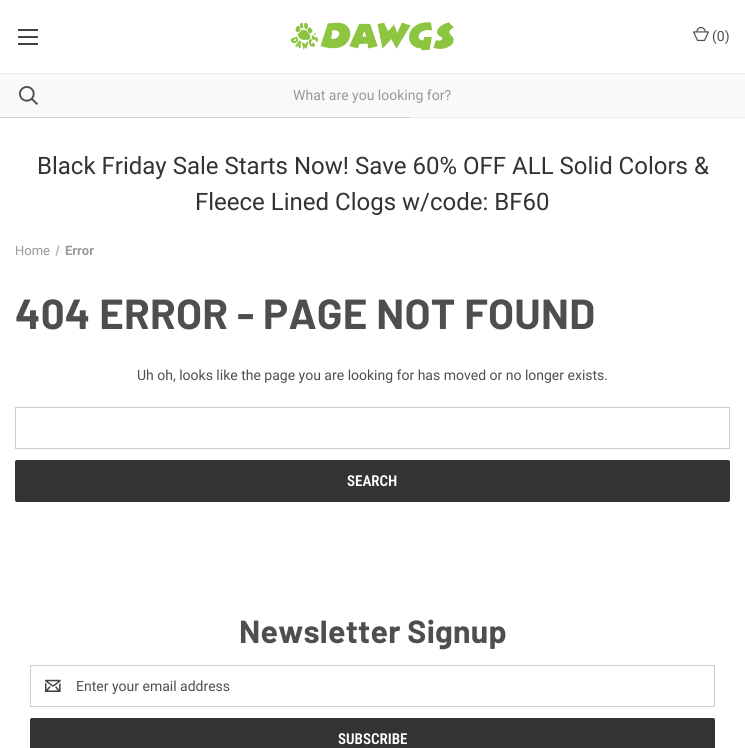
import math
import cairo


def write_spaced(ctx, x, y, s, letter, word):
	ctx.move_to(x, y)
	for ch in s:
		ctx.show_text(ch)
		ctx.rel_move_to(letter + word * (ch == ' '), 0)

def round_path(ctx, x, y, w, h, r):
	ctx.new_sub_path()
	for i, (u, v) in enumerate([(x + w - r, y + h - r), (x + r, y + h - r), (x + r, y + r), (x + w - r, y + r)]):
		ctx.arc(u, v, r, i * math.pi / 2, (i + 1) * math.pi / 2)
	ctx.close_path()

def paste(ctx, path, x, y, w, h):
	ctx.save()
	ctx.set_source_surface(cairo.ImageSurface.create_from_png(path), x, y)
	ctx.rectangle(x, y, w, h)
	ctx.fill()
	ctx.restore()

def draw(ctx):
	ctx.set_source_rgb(1, 1, 1)
	ctx.paint()
	ctx.set_source_rgb(0.922, 0.922, 0.922)
	ctx.rectangle(410, 117, 335, 1)
	ctx.fill()
	ctx.set_source_rgb(0.259, 0.259, 0.259)
	ctx.rectangle(18, 36, 20, 2)
	ctx.rectangle(18, 29, 20, 2)
	ctx.rectangle(18, 43, 20, 2)
	ctx.fill()
	paste(ctx, 'media/1.png', 290, 22, 164, 29)
	paste(ctx, 'media/2.png', 693, 27, 16, 15)
	ctx.select_font_face('Roboto')
	ctx.set_font_size(14)
	ctx.set_source_rgb(0.306, 0.306, 0.306)
	ctx.move_to(712, 41)
	ctx.show_text('(0)')
	ctx.set_source_rgb(0.976, 0.976, 0.976)
	ctx.rectangle(0, 74, 745, 43)
	ctx.fill()
	paste(ctx, 'media/3.png', 19, 86, 19, 19)
	ctx.set_source_rgb(0.922, 0.922, 0.922)
	ctx.rectangle(0, 73, 745, 1)
	ctx.fill()
	ctx.set_source_rgb(0.596, 0.596, 0.596)
	ctx.move_to(293, 100)
	ctx.show_text('What are you looking for?')
	ctx.set_source_rgb(0.824, 0.824, 0.824)
	ctx.rectangle(0, 117, 410, 1)
	ctx.fill()
	ctx.set_font_size(24)
	ctx.set_source_rgb(0.2, 0.2, 0.2)
	ctx.move_to(37, 174)
	ctx.show_text('Black Friday Sale Starts Now! Save 60% OFF ALL Solid Colors &')
	ctx.move_to(195, 210)
	ctx.show_text('Fleece Lined Clogs w/code: BF60')
	ctx.set_font_size(13)
	ctx.set_source_rgb(0.596, 0.596, 0.596)
	ctx.move_to(15, 255)
	ctx.show_text('Home')
	ctx.set_source_rgb(0.639, 0.639, 0.639)
	ctx.new_path()
	ctx.move_to(58.5, 245.5)
	ctx.line_to(59.5, 246)
	ctx.line_to(56.5, 256)
	ctx.line_to(55.5, 255.5)
	ctx.close_path()
	ctx.fill()
	ctx.select_font_face('Roboto', cairo.FONT_SLANT_NORMAL, cairo.FONT_WEIGHT_BOLD)
	ctx.set_source_rgb(0.596, 0.596, 0.596)
	ctx.move_to(65, 255)
	ctx.show_text('Error')
	ctx.select_font_face('Barlow', cairo.FONT_SLANT_NORMAL, cairo.FONT_WEIGHT_BOLD)
	ctx.set_font_size(42)
	ctx.set_source_rgb(0.306, 0.306, 0.306)
	write_spaced(ctx, 15, 329, '404 ERROR - PAGE NOT FOUND', 0.25, 0)
	ctx.select_font_face('Roboto')
	ctx.set_font_size(14)
	ctx.move_to(137, 380)
	ctx.show_text('Uh oh, looks like the page you are looking for has moved or no longer exists.')
	ctx.rectangle(15.5, 407.5, 714, 41)
	ctx.set_source_rgb(0.8, 0.8, 0.8)
	ctx.set_line_width(1)
	ctx.stroke()
	ctx.set_source_rgb(0.2, 0.2, 0.2)
	round_path(ctx, 15, 460, 715, 42, 2)
	ctx.fill()
	ctx.select_font_face('Roboto Condensed SemiBold')
	ctx.set_font_size(15)
	ctx.set_source_rgb(1, 1, 1)
	ctx.move_to(347, 486)
	ctx.show_text('SEARCH')
	ctx.select_font_face('Barlow', cairo.FONT_SLANT_NORMAL, cairo.FONT_WEIGHT_BOLD)
	ctx.set_font_size(32)
	ctx.set_source_rgb(0.306, 0.306, 0.306)
	write_spaced(ctx, 239, 643, 'Newsletter Signup', 0.25, 0)
	ctx.rectangle(30.5, 665.5, 684, 41)
	ctx.set_source_rgb(0.8, 0.8, 0.8)
	ctx.stroke()
	paste(ctx, 'media/4.png', 45, 679, 16, 13)
	ctx.select_font_face('Roboto')
	ctx.set_font_size(14)
	ctx.set_source_rgb(0.306, 0.306, 0.306)
	ctx.move_to(76, 691)
	ctx.show_text('Enter your email address')
	ctx.set_source_rgb(0.2, 0.2, 0.2)
	round_path(ctx, 30, 718, 685, 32, 2)
	ctx.fill()
	ctx.select_font_face('Roboto Condensed SemiBold')
	ctx.set_font_size(15)
	ctx.set_source_rgb(1, 1, 1)
	ctx.move_to(338, 744)
	ctx.show_text('SUBSCRIBE')


surface = cairo.ImageSurface(cairo.FORMAT_RGB24, 745, 748)
ctx = cairo.Context(surface)
options = cairo.FontOptions()
options.set_hint_metrics(cairo.HINT_METRICS_OFF)
options.set_hint_style(cairo.HINT_STYLE_NONE)
ctx.set_font_options(options)
ctx.set_miter_limit(4)
draw(ctx)
surface.write_to_png('image.png')
